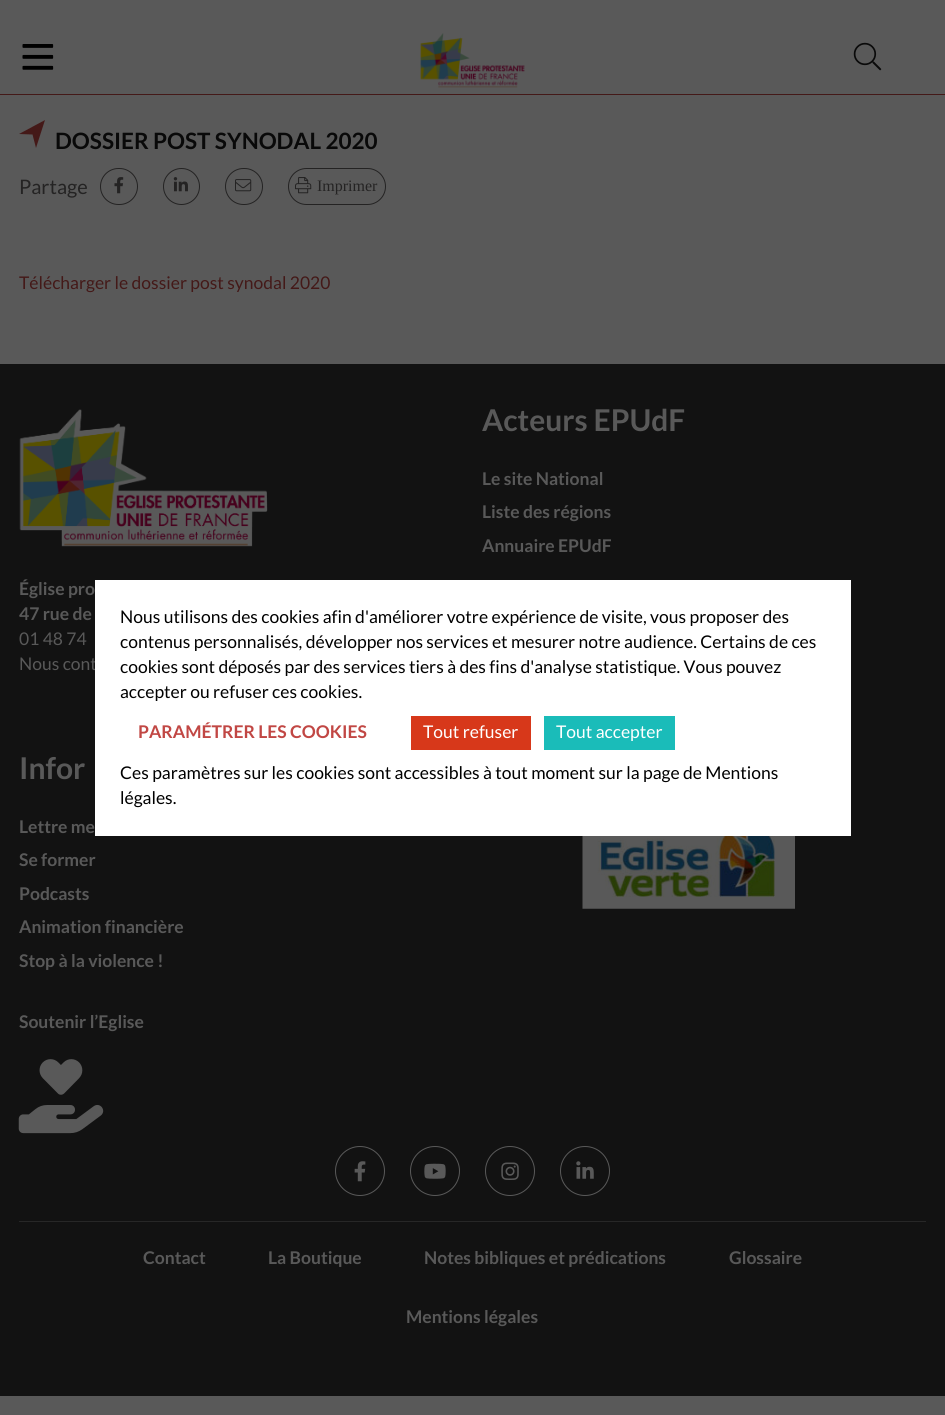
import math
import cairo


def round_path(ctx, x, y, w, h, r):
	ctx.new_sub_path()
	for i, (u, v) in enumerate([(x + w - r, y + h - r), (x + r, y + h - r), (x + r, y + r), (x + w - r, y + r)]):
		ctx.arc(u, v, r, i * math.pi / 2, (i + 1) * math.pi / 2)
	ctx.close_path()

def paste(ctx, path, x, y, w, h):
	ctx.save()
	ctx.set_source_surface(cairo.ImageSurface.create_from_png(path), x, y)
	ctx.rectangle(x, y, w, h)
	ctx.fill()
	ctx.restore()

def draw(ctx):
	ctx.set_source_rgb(0.349, 0.349, 0.349)
	ctx.paint()
	ctx.set_source_rgb(0.267, 0.098, 0.094)
	ctx.rectangle(0, 94, 945, 1)
	ctx.fill()
	paste(ctx, 'media/1.png', 22, 44, 32, 26)
	paste(ctx, 'media/2.png', 420, 33, 105, 55)
	paste(ctx, 'media/3.png', 853, 42, 29, 29)
	ctx.new_path()
	ctx.move_to(19, 134)
	ctx.line_to(32.5, 134.5)
	ctx.line_to(36, 148)
	ctx.line_to(45, 120)
	ctx.close_path()
	ctx.fill()
	ctx.select_font_face('Lato', cairo.FONT_SLANT_NORMAL, cairo.FONT_WEIGHT_BOLD)
	ctx.set_font_size(22.5)
	ctx.set_source_rgb(0.039, 0.039, 0.039)
	ctx.move_to(55, 149)
	ctx.show_text('DOSSIER POST SYNODAL 2020')
	ctx.select_font_face('Lato')
	ctx.set_font_size(20)
	ctx.set_source_rgb(0.141, 0.137, 0.137)
	ctx.move_to(19, 194)
	ctx.show_text('Partage')
	round_path(ctx, 100.5, 168.5, 37, 36, 18)
	ctx.set_line_width(1)
	ctx.stroke()
	paste(ctx, 'media/4.png', 114, 177, 10, 17)
	ctx.arc(181.5, 186.5, 18, 0, 2 * math.pi)
	ctx.stroke()
	paste(ctx, 'media/5.png', 173, 177, 15, 15)
	round_path(ctx, 225.5, 168.5, 37, 36, 18)
	ctx.stroke()
	paste(ctx, 'media/6.png', 235, 179, 17, 13)
	round_path(ctx, 288.5, 168.5, 97, 36, 18)
	ctx.stroke()
	paste(ctx, 'media/7.png', 295, 177, 17, 17)
	ctx.select_font_face('Liberation Serif')
	ctx.set_font_size(16)
	ctx.move_to(317, 191)
	ctx.show_text('Imprimer')
	ctx.select_font_face('Lato')
	ctx.set_font_size(17.5)
	ctx.set_source_rgb(0.267, 0.098, 0.094)
	ctx.move_to(19, 289)
	ctx.show_text('Télécharger le dossier post synodal 2020')
	ctx.set_source_rgb(0.071, 0.071, 0.071)
	ctx.rectangle(0, 364, 945, 1032)
	ctx.fill()
	ctx.select_font_face('Lato', cairo.FONT_SLANT_NORMAL, cairo.FONT_WEIGHT_BOLD)
	ctx.set_font_size(30)
	ctx.set_source_rgb(0.349, 0.349, 0.349)
	ctx.move_to(482, 431)
	ctx.show_text('Acteurs EPUdF')
	ctx.set_font_size(17.5)
	for x, y, s in [
		(482, 485, 'Le site National'),
		(482, 518, 'Liste des régions'),
		(482, 552, 'Annuaire EPUdF'),
	]:
		ctx.move_to(x, y)
		ctx.show_text(s)
	paste(ctx, 'media/8.png', 19, 409, 249, 138)
	ctx.move_to(19, 595)
	ctx.show_text('Église pro')
	ctx.move_to(19, 620)
	ctx.show_text('47 rue de')
	ctx.select_font_face('Lato')
	ctx.move_to(19, 645)
	ctx.show_text('01 48 74')
	ctx.move_to(19, 670)
	ctx.show_text('Nous cont')
	ctx.select_font_face('Lato', cairo.FONT_SLANT_NORMAL, cairo.FONT_WEIGHT_BOLD)
	ctx.set_font_size(30)
	ctx.move_to(19, 779)
	ctx.show_text('Infor')
	ctx.set_font_size(17.5)
	for x, y, s in [
		(19, 833, 'Lettre me'),
		(19, 866, 'Se former'),
		(19, 900, 'Podcasts'),
		(19, 933, 'Animation financière'),
		(19, 967, 'Stop à la violence !'),
		(19, 1028, 'Soutenir l’Eglise'),
	]:
		ctx.move_to(x, y)
		ctx.show_text(s)
	paste(ctx, 'media/9.png', 18, 1059, 86, 75)
	paste(ctx, 'media/10.png', 582, 836, 213, 73)
	ctx.arc(360, 1171, 24.5, 0, 2 * math.pi)
	ctx.stroke()
	paste(ctx, 'media/11.png', 354, 1161, 12, 21)
	ctx.arc(435, 1171, 24.5, 0, 2 * math.pi)
	ctx.stroke()
	paste(ctx, 'media/12.png', 424, 1163, 22, 16)
	ctx.arc(510, 1171, 24.5, 0, 2 * math.pi)
	ctx.stroke()
	paste(ctx, 'media/13.png', 501, 1162, 18, 18)
	ctx.arc(585, 1171, 24.5, 0, 2 * math.pi)
	ctx.stroke()
	paste(ctx, 'media/14.png', 576, 1161, 18, 18)
	ctx.set_source_rgb(0.153, 0.153, 0.153)
	ctx.rectangle(19, 1221, 907, 1)
	ctx.fill()
	ctx.set_source_rgb(0.349, 0.349, 0.349)
	for x, y, s in [
		(143, 1264, 'Contact'),
		(268, 1264, 'La Boutique'),
		(424, 1264, 'Notes bibliques et prédications'),
		(729, 1264, 'Glossaire'),
		(406, 1323, 'Mentions légales'),
	]:
		ctx.move_to(x, y)
		ctx.show_text(s)
	ctx.set_source_rgb(1, 1, 1)
	ctx.rectangle(95, 580, 756, 256)
	ctx.fill()
	ctx.select_font_face('Lato')
	ctx.set_source_rgb(0, 0, 0)
	for x, y, s in [
		(120, 623, 'Nous utilisons des cookies afin d\'améliorer votre expérience de visite, vous proposer des'),
		(120, 648, 'contenus personnalisés, développer nos services et mesurer notre audience. Certains de ces'),
		(120, 673, 'cookies sont déposés par des services tiers à des fins d\'analyse statistique. Vous pouvez'),
		(120, 698, 'accepter ou refuser ces cookies.'),
	]:
		ctx.move_to(x, y)
		ctx.show_text(s)
	ctx.select_font_face('Lato', cairo.FONT_SLANT_NORMAL, cairo.FONT_WEIGHT_BOLD)
	ctx.set_source_rgb(0.757, 0.278, 0.267)
	ctx.move_to(138, 738)
	ctx.show_text('PARAMÉTRER LES COOKIES')
	ctx.set_source_rgb(0.843, 0.22, 0.102)
	ctx.rectangle(411, 716, 120, 34)
	ctx.fill()
	ctx.select_font_face('Lato')
	ctx.set_source_rgb(1, 1, 1)
	ctx.move_to(423, 738)
	ctx.show_text('Tout refuser')
	ctx.set_source_rgb(0.102, 0.737, 0.725)
	ctx.rectangle(544, 716, 131, 34)
	ctx.fill()
	ctx.set_source_rgb(1, 1, 1)
	ctx.move_to(556, 738)
	ctx.show_text('Tout accepter')
	ctx.set_source_rgb(0, 0, 0)
	ctx.move_to(120, 779)
	ctx.show_text('Ces paramètres sur les cookies sont accessibles à tout moment sur la page de Mentions')
	ctx.move_to(120, 804)
	ctx.show_text('légales.')


surface = cairo.ImageSurface(cairo.FORMAT_RGB24, 945, 1415)
ctx = cairo.Context(surface)
options = cairo.FontOptions()
options.set_hint_metrics(cairo.HINT_METRICS_OFF)
options.set_hint_style(cairo.HINT_STYLE_NONE)
ctx.set_font_options(options)
ctx.set_miter_limit(4)
draw(ctx)
surface.write_to_png('image.png')
